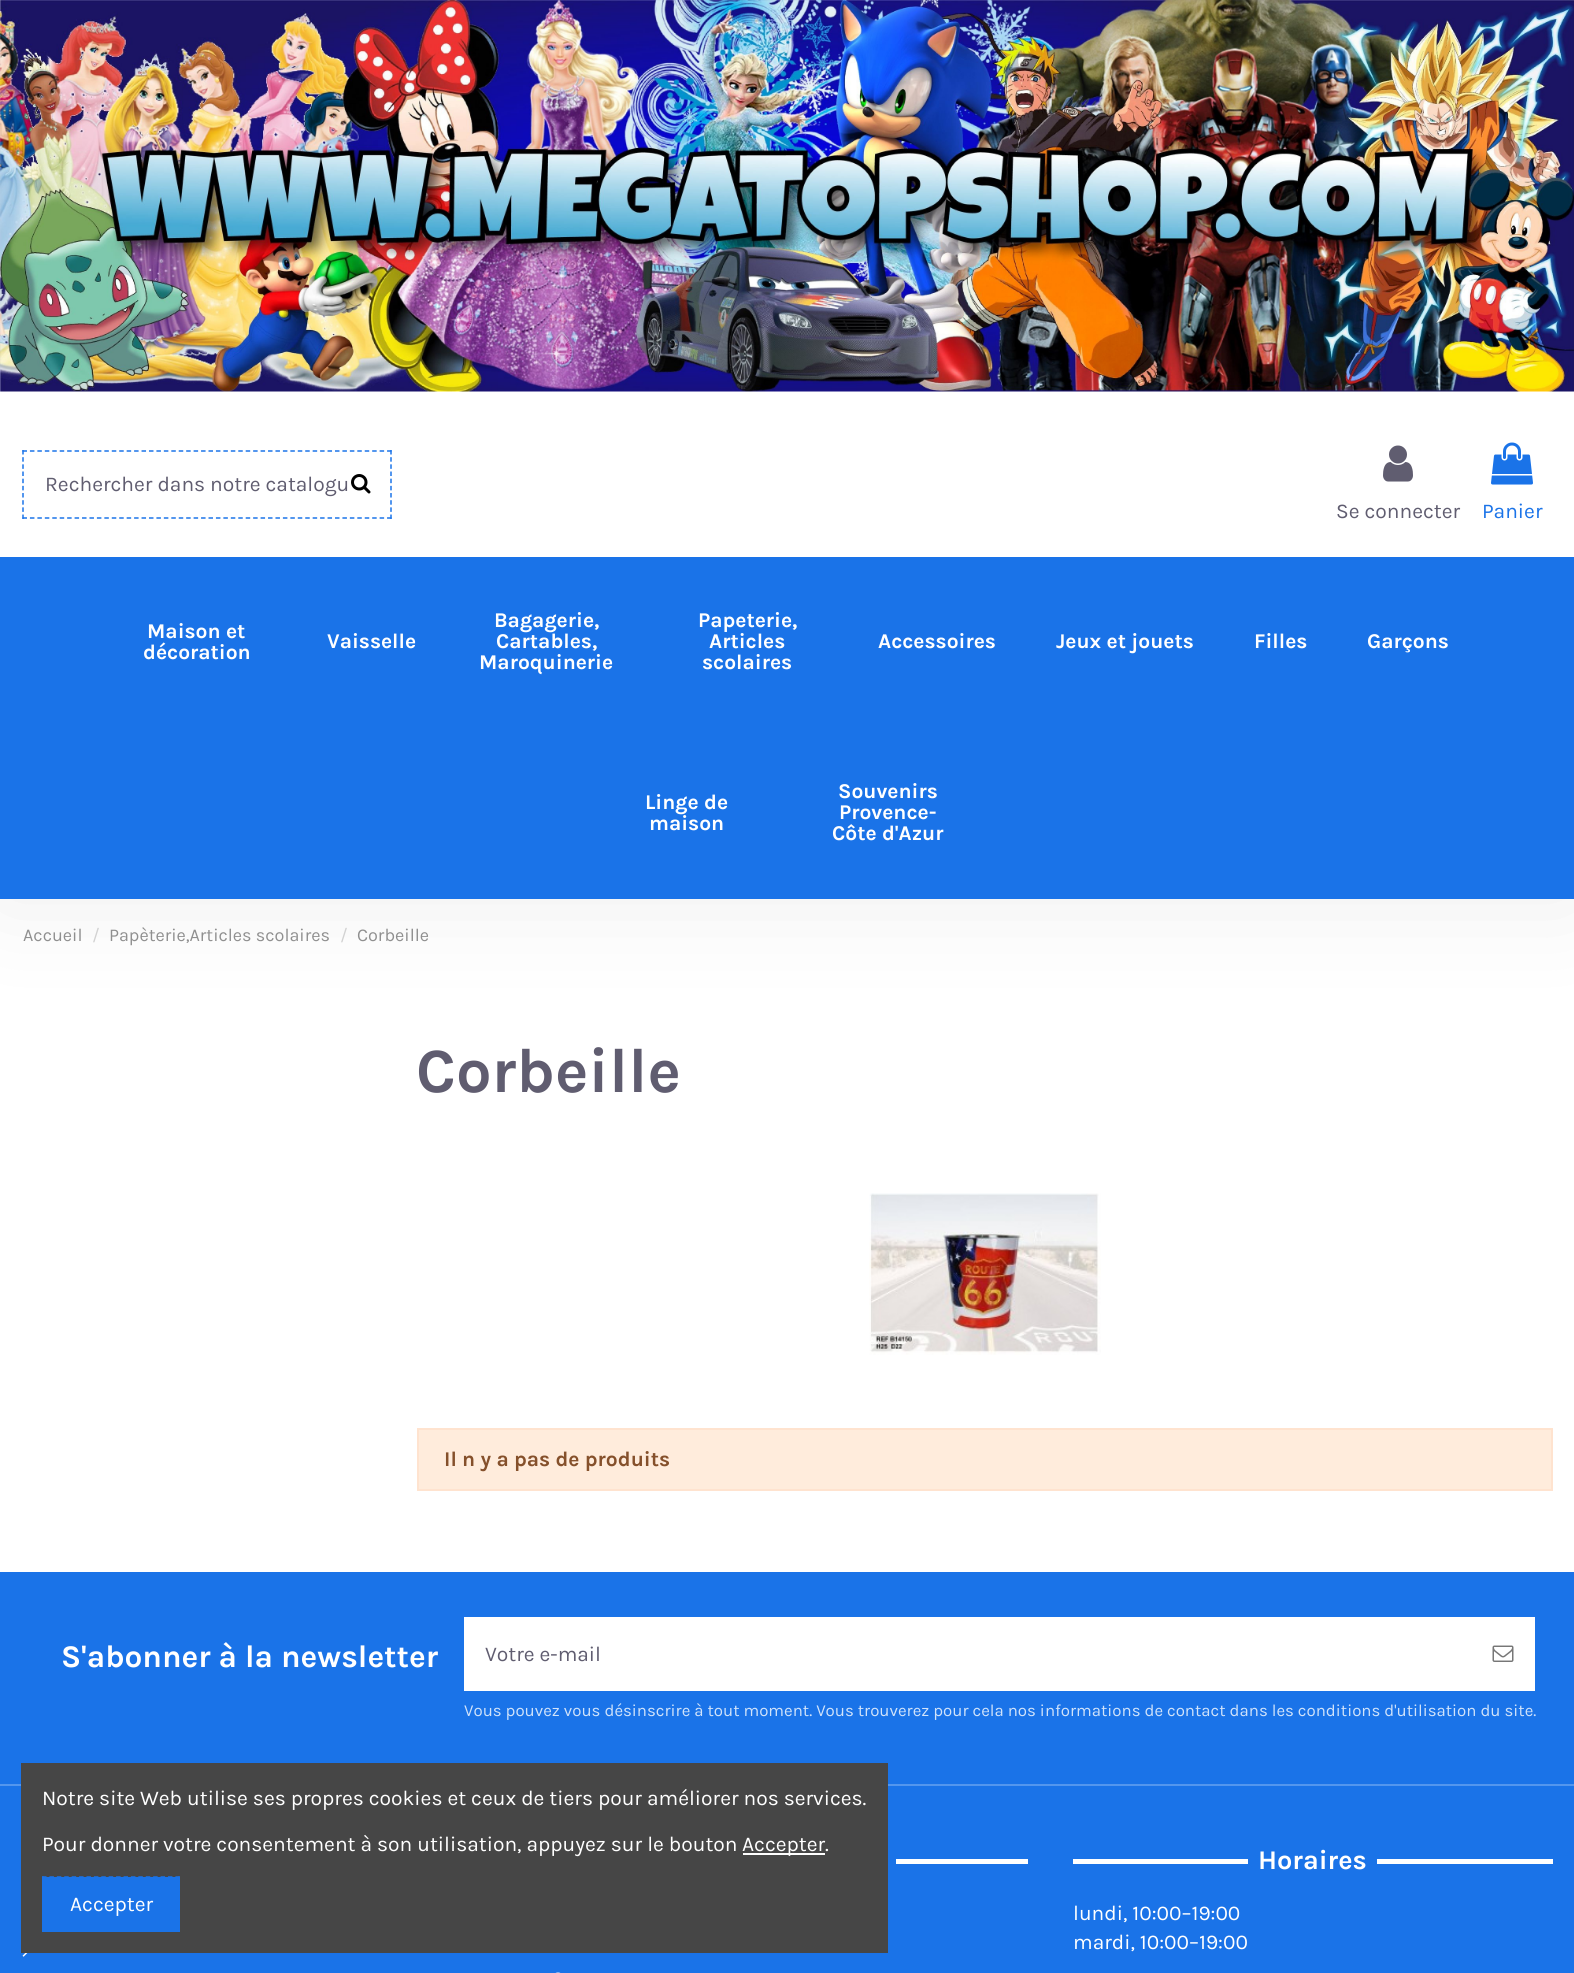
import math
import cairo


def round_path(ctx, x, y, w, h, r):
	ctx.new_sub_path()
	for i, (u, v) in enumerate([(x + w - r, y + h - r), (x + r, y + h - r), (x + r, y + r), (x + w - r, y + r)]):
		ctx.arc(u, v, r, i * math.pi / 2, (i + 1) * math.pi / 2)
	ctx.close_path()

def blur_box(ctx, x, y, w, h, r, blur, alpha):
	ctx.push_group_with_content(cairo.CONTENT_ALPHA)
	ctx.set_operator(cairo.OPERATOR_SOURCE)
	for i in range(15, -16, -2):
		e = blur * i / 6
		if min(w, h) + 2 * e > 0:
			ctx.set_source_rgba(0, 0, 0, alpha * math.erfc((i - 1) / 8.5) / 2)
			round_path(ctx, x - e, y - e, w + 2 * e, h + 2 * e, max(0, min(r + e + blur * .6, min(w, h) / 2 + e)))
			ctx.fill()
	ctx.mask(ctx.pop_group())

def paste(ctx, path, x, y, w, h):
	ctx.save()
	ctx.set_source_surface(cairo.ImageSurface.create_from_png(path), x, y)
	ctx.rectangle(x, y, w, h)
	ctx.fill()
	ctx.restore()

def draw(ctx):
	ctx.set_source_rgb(1, 1, 1)
	ctx.paint()
	ctx.set_source_rgb(0.239, 0.224, 0.224)
	blur_box(ctx, 0, -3, 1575, 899, 0, 50, 0.1)
	ctx.set_source_rgb(1, 1, 1)
	ctx.rectangle(0, 391, 1574, 166)
	ctx.fill()
	paste(ctx, 'media/1.png', 0, 0, 1574, 392)
	ctx.new_path()
	ctx.move_to(22.5, 451)
	ctx.line_to(391.5, 451)
	ctx.set_source_rgb(0.102, 0.451, 0.91)
	ctx.set_line_width(1.5)
	ctx.set_dash([4.5, 2.94])
	ctx.stroke()
	ctx.new_path()
	ctx.move_to(391, 450)
	ctx.line_to(391, 519)
	ctx.set_dash([4.5, 2.67])
	ctx.stroke()
	ctx.new_path()
	ctx.move_to(22.5, 518)
	ctx.line_to(391.5, 518)
	ctx.set_dash([4.5, 2.94])
	ctx.stroke()
	ctx.new_path()
	ctx.move_to(23, 450)
	ctx.line_to(23, 519)
	ctx.set_dash([4.5, 2.67])
	ctx.stroke()
	ctx.select_font_face('Karla')
	ctx.set_font_size(21)
	ctx.set_source_rgb(0.376, 0.365, 0.439)
	ctx.move_to(45, 491)
	ctx.show_text('Rechercher dans notre catalogu')
	paste(ctx, 'media/2.png', 351, 474, 20, 20)
	paste(ctx, 'media/3.png', 1383, 445, 30, 37)
	ctx.move_to(1336, 518)
	ctx.show_text('Se connecter')
	paste(ctx, 'media/4.png', 1491, 442, 42, 43)
	ctx.set_source_rgb(0.102, 0.451, 0.91)
	ctx.move_to(1482, 518)
	ctx.show_text('Panier')
	ctx.rectangle(0, 557, 1574, 342)
	ctx.fill()
	ctx.select_font_face('Karla', cairo.FONT_SLANT_NORMAL, cairo.FONT_WEIGHT_BOLD)
	ctx.set_source_rgb(1, 1, 1)
	for x, y, s in [
		(147, 638, 'Maison et'),
		(143, 659, 'décoration'),
		(327, 648, 'Vaisselle'),
		(494, 627, 'Bagagerie,'),
		(496, 648, 'Cartables,'),
		(479, 669, 'Maroquinerie'),
		(698, 627, 'Papeterie,'),
		(709, 648, 'Articles'),
		(702, 669, 'scolaires'),
		(878, 648, 'Accessoires'),
		(1056, 648, 'Jeux et jouets'),
		(1254, 648, 'Filles'),
		(1367, 648, 'Garçons'),
		(645, 809, 'Linge de'),
		(649, 830, 'maison'),
		(838, 798, 'Souvenirs'),
		(839, 819, 'Provence-'),
		(832, 840, 'Côte d\'Azur'),
	]:
		ctx.move_to(x, y)
		ctx.show_text(s)
	ctx.select_font_face('Karla')
	ctx.set_font_size(18)
	ctx.set_source_rgb(0.561, 0.561, 0.561)
	ctx.move_to(23, 941)
	ctx.show_text('Accueil')
	ctx.set_source_rgb(0.824, 0.824, 0.824)
	ctx.move_to(92, 941)
	ctx.show_text('/')
	ctx.set_source_rgb(0.561, 0.561, 0.561)
	ctx.move_to(109, 941)
	ctx.show_text('Papèterie,Articles scolaires')
	ctx.set_source_rgb(0.824, 0.824, 0.824)
	ctx.move_to(340, 941)
	ctx.show_text('/')
	ctx.set_source_rgb(0.561, 0.561, 0.561)
	ctx.move_to(357, 941)
	ctx.show_text('Corbeille')
	ctx.select_font_face('Karla', cairo.FONT_SLANT_NORMAL, cairo.FONT_WEIGHT_BOLD)
	ctx.set_font_size(63)
	ctx.set_source_rgb(0.376, 0.365, 0.439)
	ctx.move_to(416, 1092)
	ctx.show_text('Corbeille')
	paste(ctx, 'media/5.png', 869, 1193, 232, 162)
	ctx.set_source_rgb(1, 0.922, 0.863)
	ctx.rectangle(418, 1429, 1134, 61)
	ctx.fill_preserve()
	ctx.set_source_rgb(1, 0.89, 0.812)
	ctx.set_line_width(2)
	ctx.set_dash([])
	ctx.stroke()
	ctx.set_font_size(21)
	ctx.set_source_rgb(0.522, 0.314, 0.169)
	ctx.move_to(444, 1466)
	ctx.show_text('Il n y a pas de produits')
	ctx.set_source_rgb(0.102, 0.451, 0.91)
	ctx.rectangle(0, 1572, 1574, 401)
	ctx.fill()
	ctx.set_font_size(31.5)
	ctx.set_source_rgb(1, 1, 1)
	ctx.move_to(61, 1667)
	ctx.show_text('S\'abonner à la newsletter')
	ctx.rectangle(464, 1617, 1071, 74)
	ctx.fill()
	ctx.select_font_face('Karla')
	ctx.set_font_size(21)
	ctx.set_source_rgb(0.376, 0.365, 0.439)
	ctx.move_to(485, 1661)
	ctx.show_text('Votre e-mail')
	paste(ctx, 'media/6.png', 1492, 1645, 22, 17)
	ctx.set_font_size(16.8)
	ctx.set_source_rgb(0.82, 0.89, 0.98)
	ctx.move_to(464, 1716)
	ctx.show_text('Vous pouvez vous désinscrire à tout moment. Vous trouverez pour cela nos informations de contact dans les conditions d\'utilisation du site.')
	ctx.set_source_rgb(0.325, 0.588, 0.933)
	ctx.rectangle(0, 1784, 1574, 2)
	ctx.fill()
	paste(ctx, 'media/7.png', 22, 1953, 6, 4)
	ctx.set_source_rgb(1, 1, 1)
	ctx.rectangle(896, 1859, 132, 5)
	ctx.fill()
	paste(ctx, 'media/8.png', 555, 1972, 6, 1)
	ctx.rectangle(1073, 1859, 175, 5)
	ctx.fill()
	ctx.select_font_face('Karla', cairo.FONT_SLANT_NORMAL, cairo.FONT_WEIGHT_BOLD)
	ctx.set_font_size(27)
	ctx.move_to(1258, 1869)
	ctx.show_text('Horaires')
	ctx.rectangle(1377, 1859, 176, 5)
	ctx.fill()
	ctx.select_font_face('Karla')
	ctx.set_font_size(21)
	ctx.move_to(1073, 1920)
	ctx.show_text('lundi, 10:00–19:00')
	ctx.move_to(1073, 1949)
	ctx.show_text('mardi, 10:00–19:00')
	ctx.set_source_rgb(0.275, 0.275, 0.275)
	ctx.rectangle(21, 1763, 867, 190)
	ctx.fill()
	ctx.set_source_rgb(1, 1, 1)
	ctx.move_to(42, 1805)
	ctx.show_text('Notre site Web utilise ses propres cookies et ceux de tiers pour améliorer nos services.')
	ctx.move_to(42, 1851)
	ctx.show_text('Pour donner votre consentement à son utilisation, appuyez sur le bouton')
	ctx.rectangle(743, 1853, 82, 2)
	ctx.fill()
	ctx.move_to(742, 1851)
	ctx.show_text('Accepter.')
	ctx.set_source_rgb(0.102, 0.451, 0.91)
	ctx.rectangle(42, 1877, 138, 55)
	ctx.fill()
	ctx.new_path()
	ctx.move_to(42, 1877)
	ctx.line_to(180, 1877)
	ctx.set_line_width(1.5)
	ctx.set_dash([4.5, 2.91])
	ctx.stroke()
	ctx.new_path()
	ctx.move_to(179, 1876.5)
	ctx.line_to(179, 1932)
	ctx.set_dash([4.5, 2.79])
	ctx.stroke()
	ctx.new_path()
	ctx.move_to(43, 1876.5)
	ctx.line_to(43, 1932)
	ctx.stroke()
	ctx.set_source_rgb(1, 1, 1)
	ctx.move_to(70, 1911)
	ctx.show_text('Accepter')


surface = cairo.ImageSurface(cairo.FORMAT_RGB24, 1574, 1973)
ctx = cairo.Context(surface)
options = cairo.FontOptions()
options.set_hint_metrics(cairo.HINT_METRICS_OFF)
options.set_hint_style(cairo.HINT_STYLE_NONE)
ctx.set_font_options(options)
ctx.set_miter_limit(4)
draw(ctx)
surface.write_to_png('image.png')
